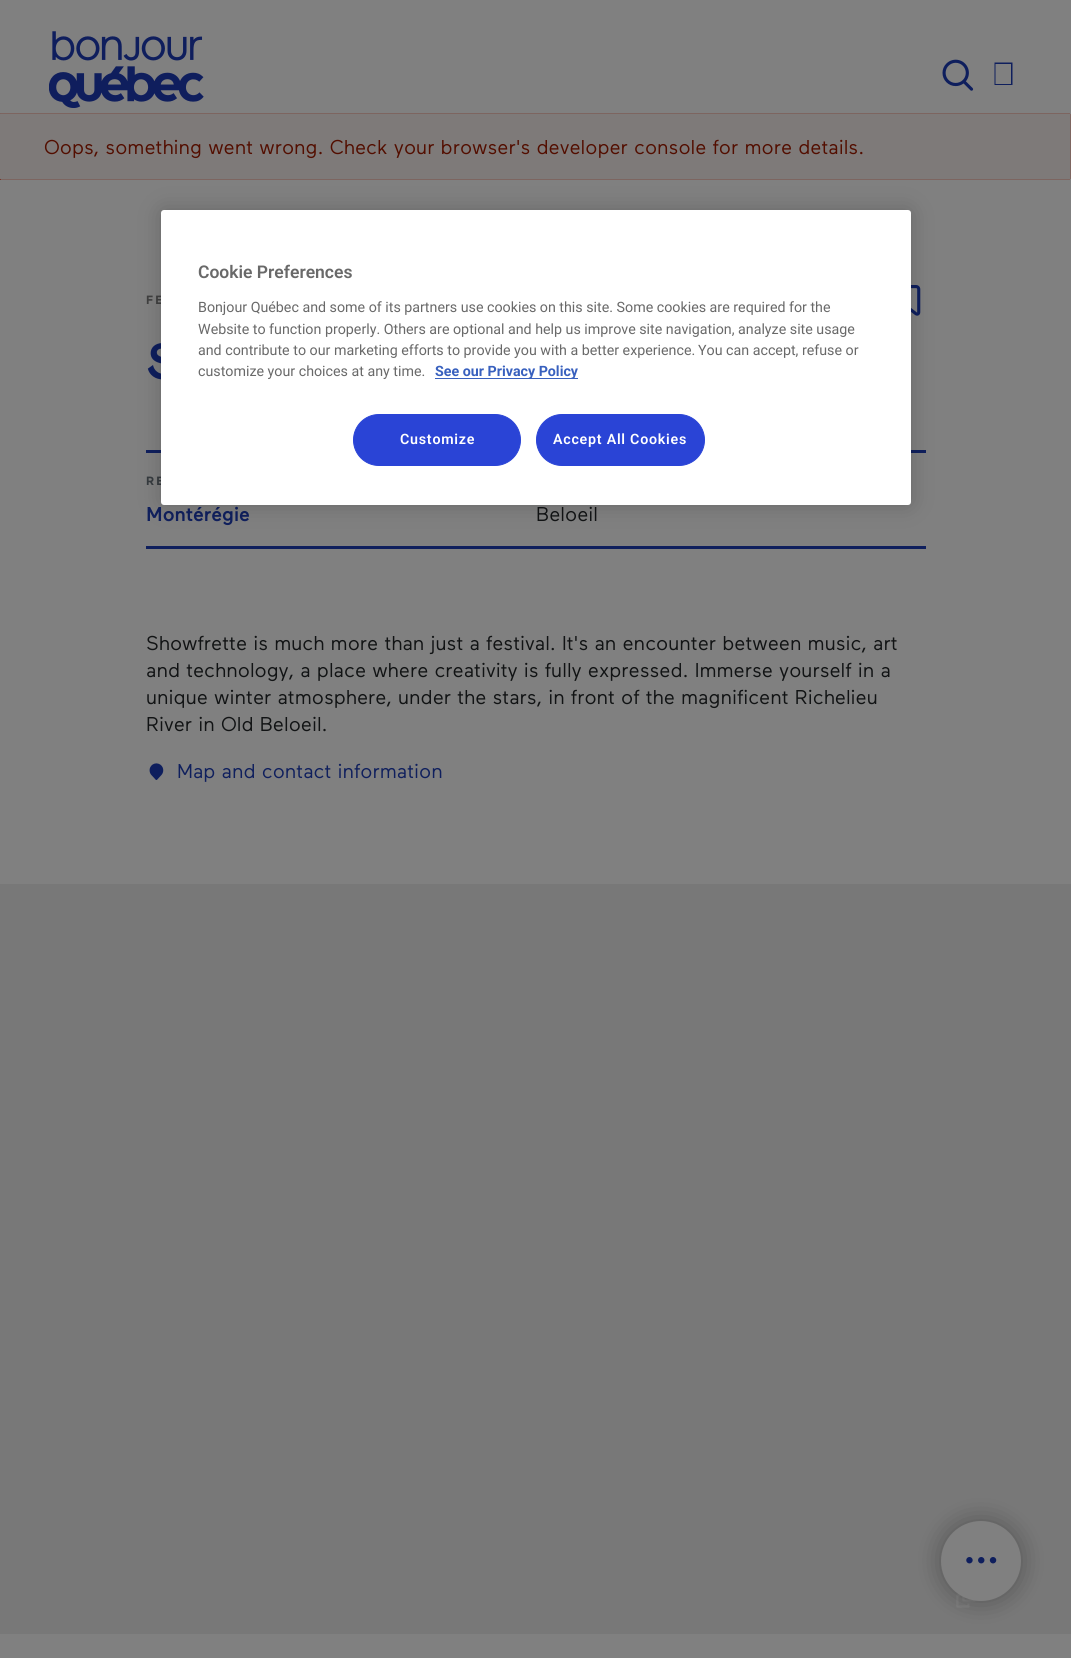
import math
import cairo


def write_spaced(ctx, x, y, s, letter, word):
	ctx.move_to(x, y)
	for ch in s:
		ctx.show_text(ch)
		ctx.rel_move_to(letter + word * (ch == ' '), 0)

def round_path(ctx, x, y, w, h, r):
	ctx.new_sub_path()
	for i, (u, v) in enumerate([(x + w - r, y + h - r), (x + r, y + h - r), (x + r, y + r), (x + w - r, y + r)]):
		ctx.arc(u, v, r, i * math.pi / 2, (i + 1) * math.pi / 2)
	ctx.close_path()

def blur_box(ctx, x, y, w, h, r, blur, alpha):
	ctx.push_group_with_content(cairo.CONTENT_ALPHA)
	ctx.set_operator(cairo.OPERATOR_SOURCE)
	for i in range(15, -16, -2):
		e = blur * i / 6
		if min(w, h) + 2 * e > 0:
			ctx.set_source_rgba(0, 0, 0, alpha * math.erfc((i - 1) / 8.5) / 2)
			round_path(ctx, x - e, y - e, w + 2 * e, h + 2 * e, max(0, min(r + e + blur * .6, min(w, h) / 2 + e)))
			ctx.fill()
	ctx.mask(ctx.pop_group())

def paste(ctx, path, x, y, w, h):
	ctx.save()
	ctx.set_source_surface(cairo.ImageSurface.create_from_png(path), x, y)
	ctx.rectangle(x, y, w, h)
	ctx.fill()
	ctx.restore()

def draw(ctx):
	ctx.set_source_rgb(0.502, 0.502, 0.502)
	ctx.paint()
	paste(ctx, 'media/1.png', 49, 31, 155, 77)
	paste(ctx, 'media/2.png', 942, 59, 32, 32)
	ctx.set_source_rgb(0.059, 0.122, 0.365)
	ctx.new_path()
	ctx.move_to(994.5, 62.5)
	ctx.line_to(1012.5, 62.5)
	ctx.line_to(1012.5, 85)
	ctx.line_to(994.5, 85)
	ctx.close_path()
	ctx.move_to(995.5, 64)
	ctx.line_to(995.5, 84)
	ctx.line_to(1011, 84)
	ctx.line_to(1011, 64)
	ctx.close_path()
	ctx.fill()
	ctx.set_source_rgb(0.451, 0.075, 0)
	ctx.new_path()
	ctx.move_to(-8, 113)
	ctx.curve_to(-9, 113, -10, 114, -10, 116)
	ctx.line_to(-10, 178)
	ctx.curve_to(-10, 179, -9, 180, -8, 180)
	ctx.line_to(2, 180)
	ctx.curve_to(1, 180, 0, 179, 0, 178)
	ctx.line_to(0, 115)
	ctx.curve_to(0, 114, 0, 113, 1, 113)
	ctx.close_path()
	ctx.fill()
	ctx.set_source_rgb(0.494, 0.478, 0.475)
	round_path(ctx, 0, 113, 1071, 67, 2.5)
	ctx.fill()
	ctx.set_source_rgb(0.49, 0.396, 0.376)
	ctx.rectangle(1, 113, 1069, 1)
	ctx.rectangle(1070, 114, 1, 65)
	ctx.rectangle(1, 179, 1069, 1)
	ctx.fill()
	ctx.select_font_face('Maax')
	ctx.set_font_size(20)
	ctx.set_source_rgb(0.325, 0.055, 0)
	ctx.move_to(44, 154)
	ctx.show_text('Oops, something went wrong. Check your browser\'s developer console for more details.')
	ctx.select_font_face('Maax', cairo.FONT_SLANT_NORMAL, cairo.FONT_WEIGHT_BOLD)
	ctx.set_font_size(12)
	ctx.set_source_rgb(0.251, 0.251, 0.251)
	write_spaced(ctx, 146, 304, 'FE', 2, 0)
	paste(ctx, 'media/3.png', 911, 285, 10, 31)
	paste(ctx, 'media/4.png', 147, 343, 14, 37)
	ctx.set_source_rgb(0.059, 0.122, 0.365)
	ctx.rectangle(146, 450, 780, 3)
	ctx.fill()
	ctx.rectangle(146, 546, 780, 3)
	ctx.fill()
	ctx.set_source_rgb(0.212, 0.231, 0.247)
	write_spaced(ctx, 146, 485, 'RE', 2, 0)
	ctx.select_font_face('Maax Medium')
	ctx.set_font_size(20)
	ctx.set_source_rgb(0.059, 0.122, 0.365)
	ctx.move_to(146, 521)
	ctx.show_text('Montérégie')
	ctx.select_font_face('Maax')
	ctx.set_source_rgb(0.067, 0.075, 0.082)
	for x, y, s in [
		(536, 521, 'Beloeil'),
		(146, 650, 'Showfrette is much more than just a festival. It\'s an encounter between music, art'),
		(146, 677, 'and technology, a place where creativity is fully expressed. Immerse yourself in a'),
		(146, 704, 'unique winter atmosphere, under the stars, in front of the magnificent Richelieu'),
		(146, 731, 'River in Old Beloeil.'),
	]:
		ctx.move_to(x, y)
		ctx.show_text(s)
	paste(ctx, 'media/5.png', 149, 763, 15, 17)
	ctx.set_source_rgb(0.059, 0.122, 0.365)
	ctx.move_to(177, 778)
	ctx.show_text('Map and contact information')
	ctx.set_source_rgb(0.471, 0.471, 0.471)
	ctx.rectangle(0, 884, 1071, 750)
	ctx.fill()
	paste(ctx, 'media/6.png', 956, 1594, 20, 14)
	ctx.set_source_rgb(0, 0, 0)
	blur_box(ctx, 941, 1521, 80, 80, 40, 12.5, 0.3)
	ctx.set_source_rgb(0.502, 0.502, 0.502)
	ctx.arc(981, 1561, 40, 0, 2 * math.pi)
	ctx.fill()
	paste(ctx, 'media/7.png', 966, 1557, 31, 7)
	ctx.set_source_rgb(0, 0, 0)
	blur_box(ctx, 161, 210, 750, 295, 3, 11, 0.2)
	ctx.set_source_rgb(1, 1, 1)
	round_path(ctx, 161, 210, 750, 295, 3)
	ctx.fill()
	ctx.select_font_face('Roboto SemiBold')
	ctx.set_font_size(17.5)
	ctx.set_source_rgb(0.412, 0.412, 0.412)
	ctx.move_to(198, 278)
	ctx.show_text('Cookie Preferences')
	ctx.select_font_face('Roboto')
	ctx.set_font_size(14.25)
	for x, y, s in [
		(198, 312, 'Bonjour Québec and some of its partners use cookies on this site. Some cookies are required for the'),
		(198, 334, 'Website to function properly. Others are optional and help us improve site navigation, analyze site usage'),
		(198, 355, 'and contribute to our marketing efforts to provide you with a better experience.'),
		(698, 355, 'You can accept, refuse or'),
		(198, 376, 'customize your choices at any time.'),
	]:
		ctx.move_to(x, y)
		ctx.show_text(s)
	ctx.set_source_rgb(0.22, 0.376, 0.745)
	ctx.rectangle(435, 378, 143, 1)
	ctx.fill()
	ctx.select_font_face('Roboto', cairo.FONT_SLANT_NORMAL, cairo.FONT_WEIGHT_BOLD)
	ctx.move_to(435, 376)
	ctx.show_text('See our Privacy Policy')
	ctx.set_source_rgb(0.165, 0.267, 0.839)
	round_path(ctx, 353.5, 414.5, 167, 51, 25.5)
	ctx.fill_preserve()
	ctx.set_line_width(1)
	ctx.stroke()
	ctx.select_font_face('Roboto SemiBold')
	ctx.set_source_rgb(1, 1, 1)
	write_spaced(ctx, 400, 444, 'Customize', 0.75, 0)
	ctx.set_source_rgb(0.165, 0.267, 0.839)
	round_path(ctx, 536.5, 414.5, 168, 51, 25.5)
	ctx.fill_preserve()
	ctx.stroke()
	ctx.set_source_rgb(1, 1, 1)
	write_spaced(ctx, 553, 444, 'Accept All Cookies', 0.75, 0)


surface = cairo.ImageSurface(cairo.FORMAT_RGB24, 1071, 1658)
ctx = cairo.Context(surface)
options = cairo.FontOptions()
options.set_hint_metrics(cairo.HINT_METRICS_OFF)
options.set_hint_style(cairo.HINT_STYLE_NONE)
ctx.set_font_options(options)
ctx.set_miter_limit(4)
draw(ctx)
surface.write_to_png('image.png')
